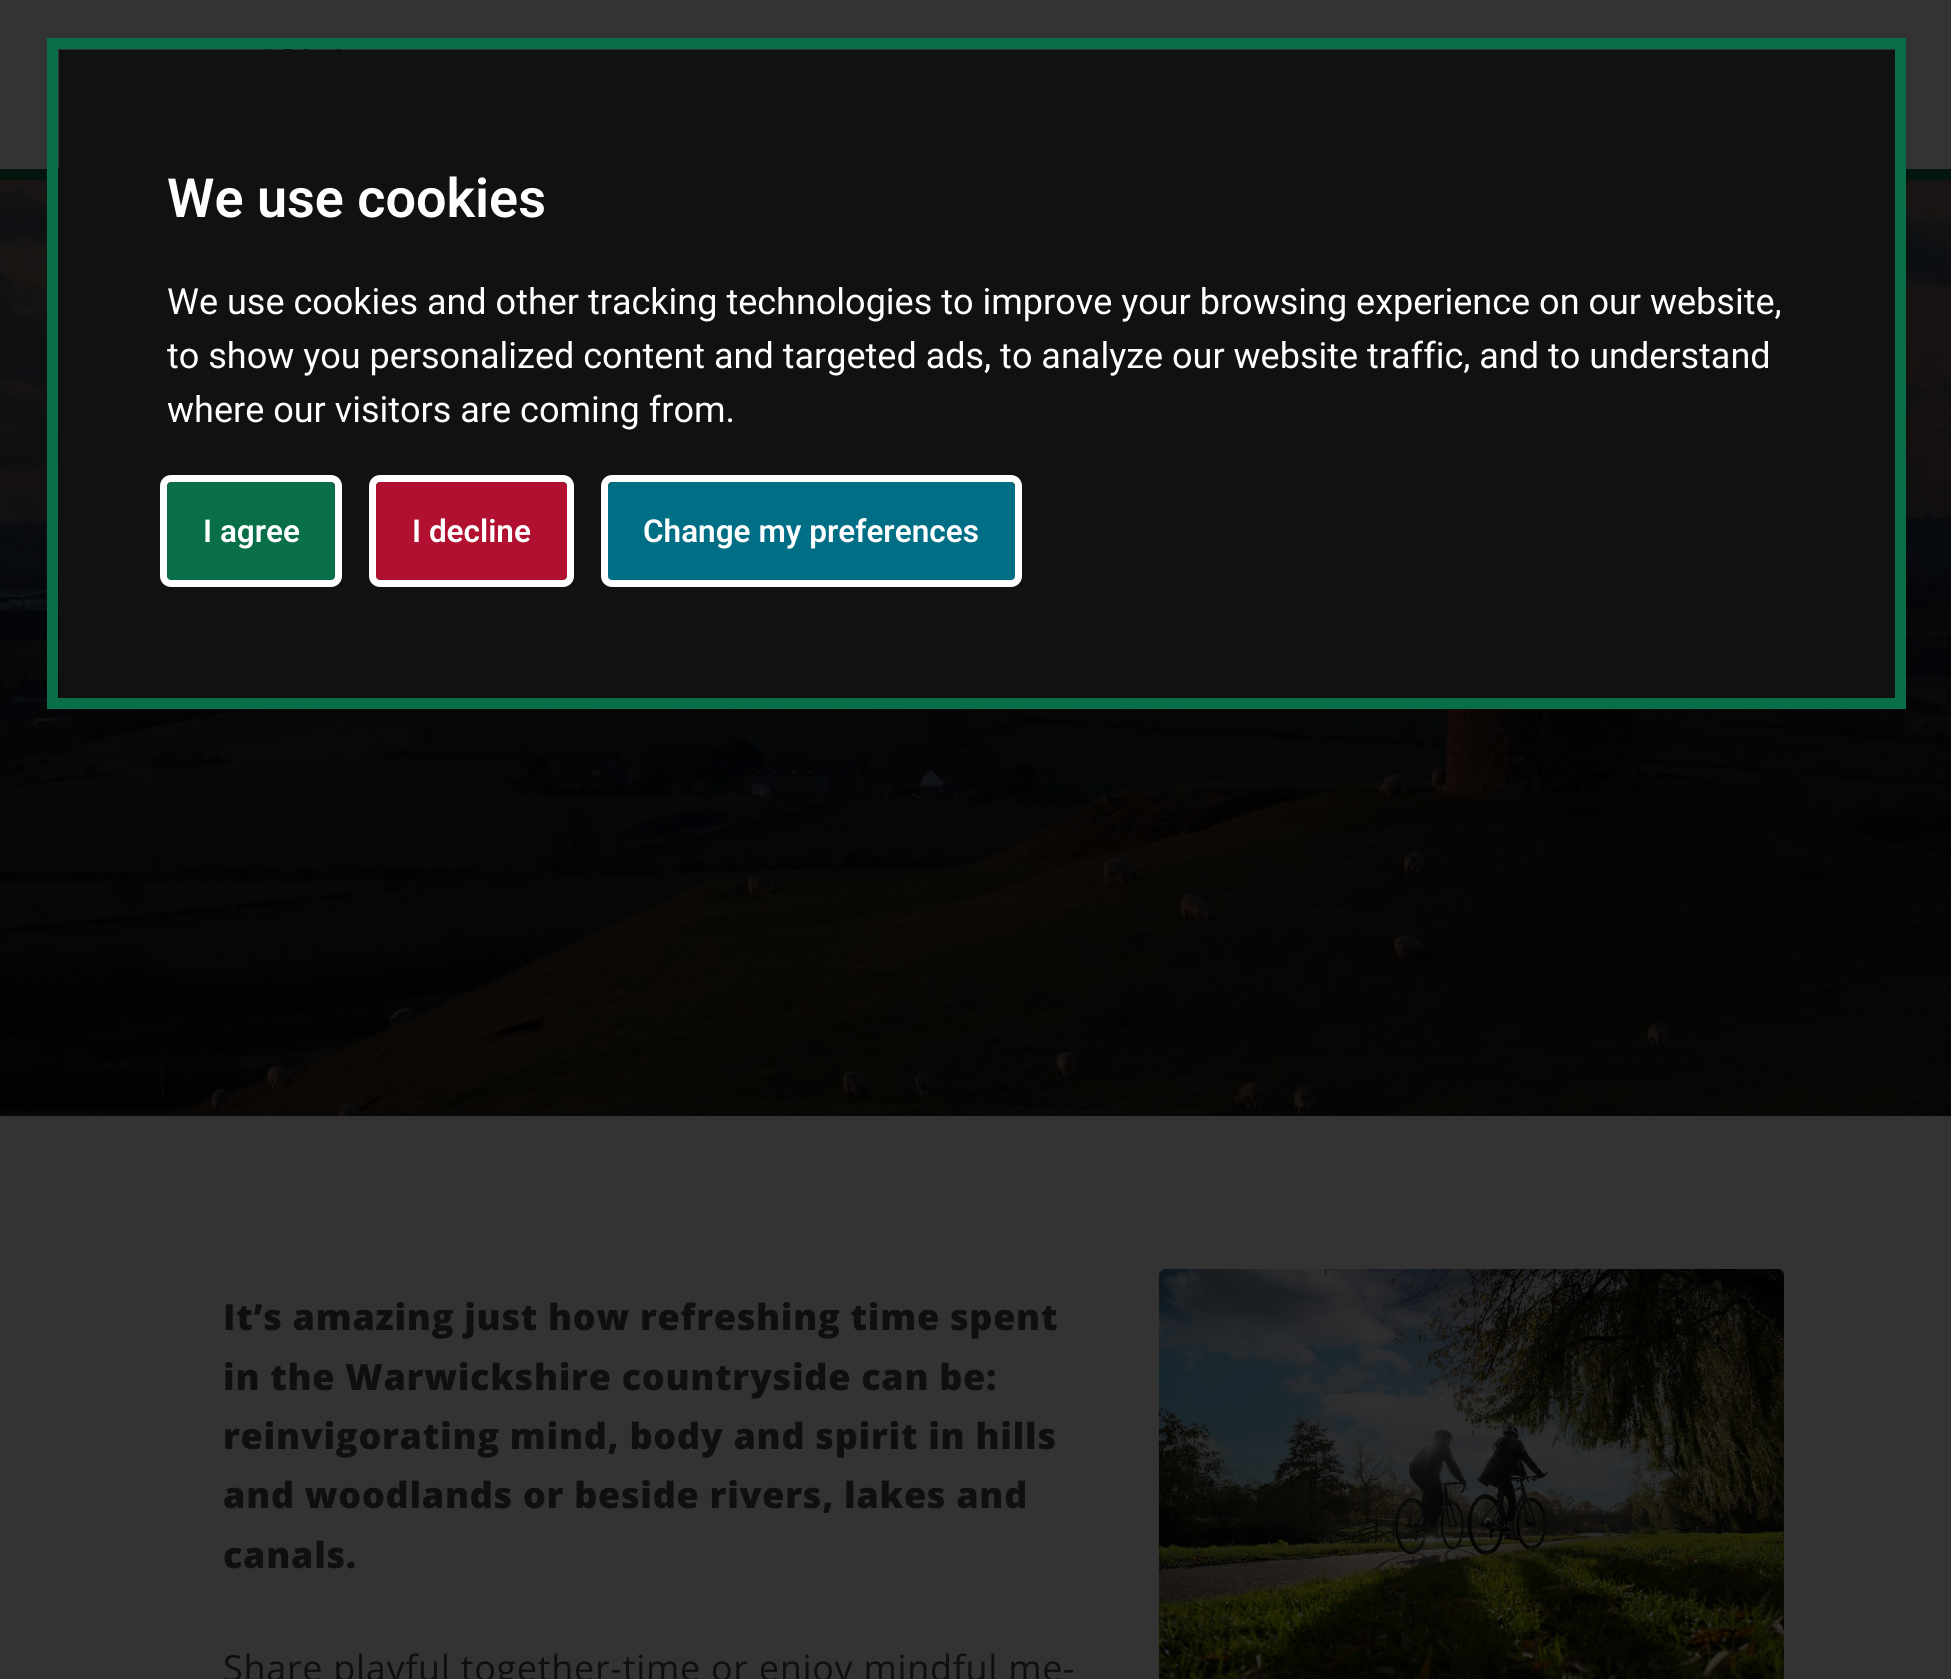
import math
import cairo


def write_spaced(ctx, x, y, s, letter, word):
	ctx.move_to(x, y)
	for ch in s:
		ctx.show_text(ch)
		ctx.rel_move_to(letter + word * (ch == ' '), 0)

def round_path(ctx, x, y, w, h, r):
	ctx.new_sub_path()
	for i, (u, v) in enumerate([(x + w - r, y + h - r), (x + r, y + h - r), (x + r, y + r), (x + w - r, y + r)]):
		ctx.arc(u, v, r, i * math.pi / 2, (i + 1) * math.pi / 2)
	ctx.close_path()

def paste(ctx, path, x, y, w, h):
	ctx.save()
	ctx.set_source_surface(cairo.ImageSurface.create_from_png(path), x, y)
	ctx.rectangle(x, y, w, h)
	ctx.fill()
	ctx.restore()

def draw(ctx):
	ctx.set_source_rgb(1, 1, 1)
	ctx.paint()
	ctx.set_source_rgb(0.2, 0.2, 0.2)
	ctx.rectangle(0, 0, 1951, 169)
	ctx.fill()
	ctx.set_source_rgb(0.008, 0.086, 0.055)
	ctx.rectangle(0, 169, 1951, 11)
	ctx.fill()
	paste(ctx, 'media/1.png', 262, 49, 79, 1)
	paste(ctx, 'media/2.png', 0, 180, 1951, 936)
	ctx.set_source_rgb(0.067, 0.067, 0.067)
	ctx.rectangle(59, 50, 1836, 648)
	ctx.fill()
	ctx.set_source_rgb(0.035, 0.435, 0.282)
	round_path(ctx, 167, 482, 168, 99, 5)
	ctx.fill()
	round_path(ctx, 163.5, 478.5, 175, 105, 7.5)
	ctx.set_source_rgb(1, 1, 1)
	ctx.set_line_width(7)
	ctx.stroke()
	ctx.set_source_rgb(0.694, 0.063, 0.188)
	round_path(ctx, 376, 482, 191, 99, 5)
	ctx.fill()
	round_path(ctx, 372.5, 478.5, 198, 105, 7.5)
	ctx.set_source_rgb(1, 1, 1)
	ctx.stroke()
	ctx.set_source_rgb(0, 0.431, 0.518)
	round_path(ctx, 608, 482, 407, 99, 5)
	ctx.fill()
	round_path(ctx, 604.5, 478.5, 414, 105, 7.5)
	ctx.set_source_rgb(1, 1, 1)
	ctx.stroke()
	ctx.rectangle(52.5, 43.5, 1848, 660)
	ctx.set_source_rgb(0.035, 0.435, 0.282)
	ctx.set_line_width(11)
	ctx.stroke()
	ctx.select_font_face('Roboto SemiBold')
	ctx.set_font_size(54)
	ctx.set_source_rgb(1, 1, 1)
	ctx.move_to(167, 217)
	ctx.show_text('We use cookies')
	ctx.select_font_face('Roboto')
	ctx.set_font_size(36)
	for x, y, s in [
		(167, 314, 'We use cookies and other tracking technologies to improve your browsing experience on our website,'),
		(167, 368, 'to show you personalized content and targeted ads, to analyze our website traffic, and to understand'),
		(167, 422, 'where our visitors are coming from.'),
	]:
		ctx.move_to(x, y)
		ctx.show_text(s)
	ctx.select_font_face('Roboto SemiBold')
	ctx.set_font_size(31.5)
	for x, y, s in [
		(203, 542, 'I agree'),
		(412, 542, 'I decline'),
		(643, 542, 'Change my preferences'),
	]:
		ctx.move_to(x, y)
		ctx.show_text(s)
	ctx.set_source_rgb(0.2, 0.2, 0.2)
	ctx.rectangle(0, 1116, 1951, 563)
	ctx.fill()
	ctx.select_font_face('Open Sans ExtraBold')
	ctx.set_font_size(36)
	ctx.set_source_rgb(0.063, 0.055, 0.063)
	for x, y, s in [
		(223, 1330, 'It’s amazing just how refreshing time spent'),
		(223, 1390, 'in the Warwickshire countryside can be:'),
		(223, 1449, 'reinvigorating mind, body and spirit in hills'),
		(223, 1508, 'and woodlands or beside rivers, lakes and'),
		(223, 1568, 'canals.'),
	]:
		write_spaced(ctx, x, y, s, 0.7, 0)
	paste(ctx, 'media/3.png', 1158, 1269, 627, 410)
	ctx.select_font_face('Open Sans')
	write_spaced(ctx, 223, 1681, 'Share playful together-time or enjoy mindful me-', 0.7, 0)


surface = cairo.ImageSurface(cairo.FORMAT_RGB24, 1951, 1679)
ctx = cairo.Context(surface)
options = cairo.FontOptions()
options.set_hint_metrics(cairo.HINT_METRICS_OFF)
options.set_hint_style(cairo.HINT_STYLE_NONE)
ctx.set_font_options(options)
ctx.set_miter_limit(4)
draw(ctx)
surface.write_to_png('image.png')
